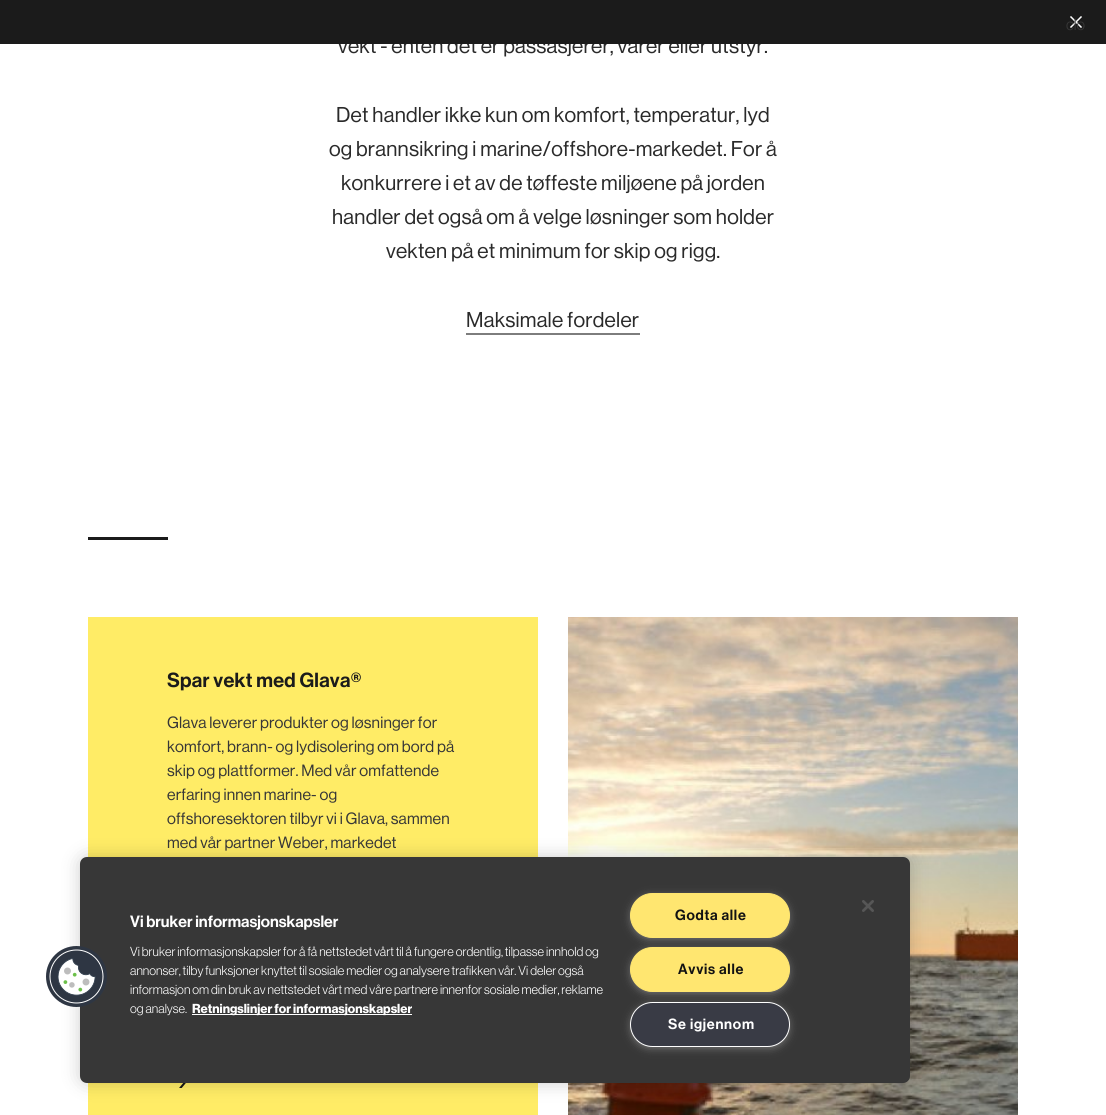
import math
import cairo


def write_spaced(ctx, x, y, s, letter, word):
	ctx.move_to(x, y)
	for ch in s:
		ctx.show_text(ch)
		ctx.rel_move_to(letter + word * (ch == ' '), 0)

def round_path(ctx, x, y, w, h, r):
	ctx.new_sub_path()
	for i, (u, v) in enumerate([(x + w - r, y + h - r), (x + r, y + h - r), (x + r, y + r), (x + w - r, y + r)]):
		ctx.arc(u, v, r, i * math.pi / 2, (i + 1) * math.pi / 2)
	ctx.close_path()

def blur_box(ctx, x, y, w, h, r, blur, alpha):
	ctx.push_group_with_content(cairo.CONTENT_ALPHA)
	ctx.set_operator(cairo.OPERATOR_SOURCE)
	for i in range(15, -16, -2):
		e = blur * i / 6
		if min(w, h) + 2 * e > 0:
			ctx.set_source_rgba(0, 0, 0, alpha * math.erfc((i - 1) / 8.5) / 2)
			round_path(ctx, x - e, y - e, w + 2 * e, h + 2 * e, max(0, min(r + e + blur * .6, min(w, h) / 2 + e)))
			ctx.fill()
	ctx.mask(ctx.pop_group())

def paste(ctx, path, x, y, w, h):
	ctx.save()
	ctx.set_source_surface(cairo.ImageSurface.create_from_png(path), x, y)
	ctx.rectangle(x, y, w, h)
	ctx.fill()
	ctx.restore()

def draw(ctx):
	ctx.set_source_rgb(1, 1, 1)
	ctx.paint()
	ctx.select_font_face('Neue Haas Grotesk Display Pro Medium')
	ctx.set_font_size(21)
	ctx.set_source_rgb(0.165, 0.165, 0.165)
	write_spaced(ctx, 338, 53, 'vekt - enten det er passasjerer, varer eller utstyr.', 0.25, 0)
	ctx.set_source_rgb(0.106, 0.106, 0.106)
	ctx.rectangle(0, 0, 1106, 44)
	ctx.fill()
	ctx.new_path()
	ctx.move_to(1081, 17)
	ctx.line_to(1071, 27)
	ctx.move_to(1071, 17)
	ctx.line_to(1081, 27)
	ctx.set_source_rgb(1, 1, 1)
	ctx.set_line_width(1.5)
	ctx.set_line_cap(cairo.LINE_CAP_SQUARE)
	ctx.set_line_join(cairo.LINE_JOIN_ROUND)
	ctx.stroke()
	ctx.select_font_face('Neue Haas Grotesk Display Pro')
	ctx.set_font_size(16)
	ctx.set_source_rgb(0.216, 0.216, 0.216)
	ctx.move_to(1066, 30)
	ctx.show_text('clo')
	ctx.select_font_face('Neue Haas Grotesk Display Pro Medium')
	ctx.set_font_size(21)
	ctx.set_source_rgb(0.165, 0.165, 0.165)
	for x, y, s in [
		(336, 122, 'Det handler ikke kun om komfort, temperatur, lyd'),
		(329, 156, 'og brannsikring i marine/offshore-markedet. For å'),
		(341, 190, 'konkurrere i et av de tøffeste miljøene på jorden'),
		(332, 224, 'handler det også om å velge løsninger som holder'),
		(386, 258, 'vekten på et minimum for skip og rigg.'),
		(466, 327, 'Maksimale fordeler'),
	]:
		write_spaced(ctx, x, y, s, 0.25, 0)
	ctx.set_source_rgb(0.49, 0.49, 0.49)
	ctx.rectangle(466, 333, 174, 2)
	ctx.fill()
	ctx.set_source_rgb(0.106, 0.106, 0.106)
	ctx.rectangle(88, 537, 80, 3)
	ctx.fill()
	ctx.set_source_rgb(1, 0.922, 0.4)
	ctx.rectangle(88, 617, 450, 498)
	ctx.fill()
	ctx.select_font_face('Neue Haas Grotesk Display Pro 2 Medium')
	ctx.set_font_size(20)
	ctx.set_source_rgb(0.106, 0.106, 0.106)
	write_spaced(ctx, 167, 687, 'Spar vekt med Glava®', 0.25, 0)
	ctx.select_font_face('Neue Haas Grotesk Display Pro Medium')
	ctx.set_font_size(16)
	ctx.set_source_rgb(0.216, 0.216, 0.216)
	for x, y, s in [
		(167, 728, 'Glava leverer produkter og løsninger for'),
		(167, 752, 'komfort, brann- og lydisolering om bord på'),
		(167, 776, 'skip og plattformer. Med vår omfattende'),
		(167, 800, 'erfaring innen marine- og'),
		(167, 824, 'offshoresektoren tilbyr vi i Glava, sammen'),
		(167, 848, 'med vår partner Weber, markedet'),
	]:
		write_spaced(ctx, x, y, s, 0.15, 0)
	paste(ctx, 'media/1.png', 179, 1083, 7, 5)
	paste(ctx, 'media/2.png', 568, 617, 450, 498)
	ctx.set_source_rgb(0, 0, 0)
	blur_box(ctx, 80, 857, 830, 226, 7, 9, 0.2)
	ctx.set_source_rgb(0.216, 0.216, 0.216)
	round_path(ctx, 80, 857, 830, 226, 7)
	ctx.fill()
	paste(ctx, 'media/3.png', 46, 946, 61, 61)
	paste(ctx, 'media/4.png', 862, 900, 12, 12)
	ctx.select_font_face('Neue Haas Grotesk Display Pro 2 Medium')
	ctx.set_source_rgb(1, 1, 1)
	ctx.move_to(130, 927)
	ctx.show_text('Vi bruker informasjonskapsler')
	ctx.select_font_face('Neue Haas Grotesk Display Pro')
	ctx.set_font_size(12.8)
	for x, y, s in [
		(130, 956, 'Vi bruker informasjonskapsler for å få nettstedet vårt til å fungere ordentlig, tilpasse innhold og'),
		(130, 975, 'annonser, tilby funksjoner knyttet til sosiale medier og analysere trafikken vår. Vi deler også'),
		(130, 994, 'informasjon om din bruk av nettstedet vårt med våre partnere innenfor sosiale medier, reklame'),
		(130, 1013, 'og analyse.'),
	]:
		ctx.move_to(x, y)
		ctx.show_text(s)
	ctx.rectangle(192, 1014, 220, 1)
	ctx.fill()
	ctx.select_font_face('Neue Haas Grotesk Display Pro', cairo.FONT_SLANT_NORMAL, cairo.FONT_WEIGHT_BOLD)
	ctx.move_to(192, 1013)
	ctx.show_text('Retningslinjer for informasjonskapsler')
	ctx.set_source_rgb(0.6, 0.6, 0.6)
	blur_box(ctx, 633, 898, 154, 39, 19.5, 5, 1)
	ctx.set_source_rgb(1, 0.902, 0.439)
	round_path(ctx, 630.5, 893.5, 159, 44, 22)
	ctx.fill_preserve()
	ctx.set_line_width(1)
	ctx.set_line_cap(cairo.LINE_CAP_BUTT)
	ctx.set_line_join(cairo.LINE_JOIN_MITER)
	ctx.stroke()
	ctx.select_font_face('Neue Haas Grotesk Display Pro 2 Medium')
	ctx.set_font_size(14.5)
	ctx.set_source_rgb(0.071, 0.071, 0.071)
	write_spaced(ctx, 675, 920, 'Godta alle', 0.75, 0)
	ctx.set_source_rgb(0.6, 0.6, 0.6)
	blur_box(ctx, 633, 952, 154, 39, 19.5, 5, 1)
	ctx.set_source_rgb(1, 0.902, 0.439)
	round_path(ctx, 630.5, 947.5, 159, 44, 22)
	ctx.fill_preserve()
	ctx.stroke()
	ctx.set_source_rgb(0.071, 0.071, 0.071)
	write_spaced(ctx, 678, 974, 'Avvis alle', 0.75, 0)
	ctx.set_source_rgb(0.6, 0.6, 0.6)
	blur_box(ctx, 633, 1007, 154, 39, 19.5, 5, 1)
	ctx.set_source_rgb(0.224, 0.231, 0.271)
	round_path(ctx, 630.5, 1002.5, 159, 44, 22)
	ctx.fill_preserve()
	ctx.set_source_rgb(1, 1, 1)
	ctx.stroke()
	write_spaced(ctx, 668, 1029, 'Se igjennom', 0.75, 0)


surface = cairo.ImageSurface(cairo.FORMAT_RGB24, 1106, 1115)
ctx = cairo.Context(surface)
options = cairo.FontOptions()
options.set_hint_metrics(cairo.HINT_METRICS_OFF)
options.set_hint_style(cairo.HINT_STYLE_NONE)
ctx.set_font_options(options)
ctx.set_miter_limit(4)
draw(ctx)
surface.write_to_png('image.png')
